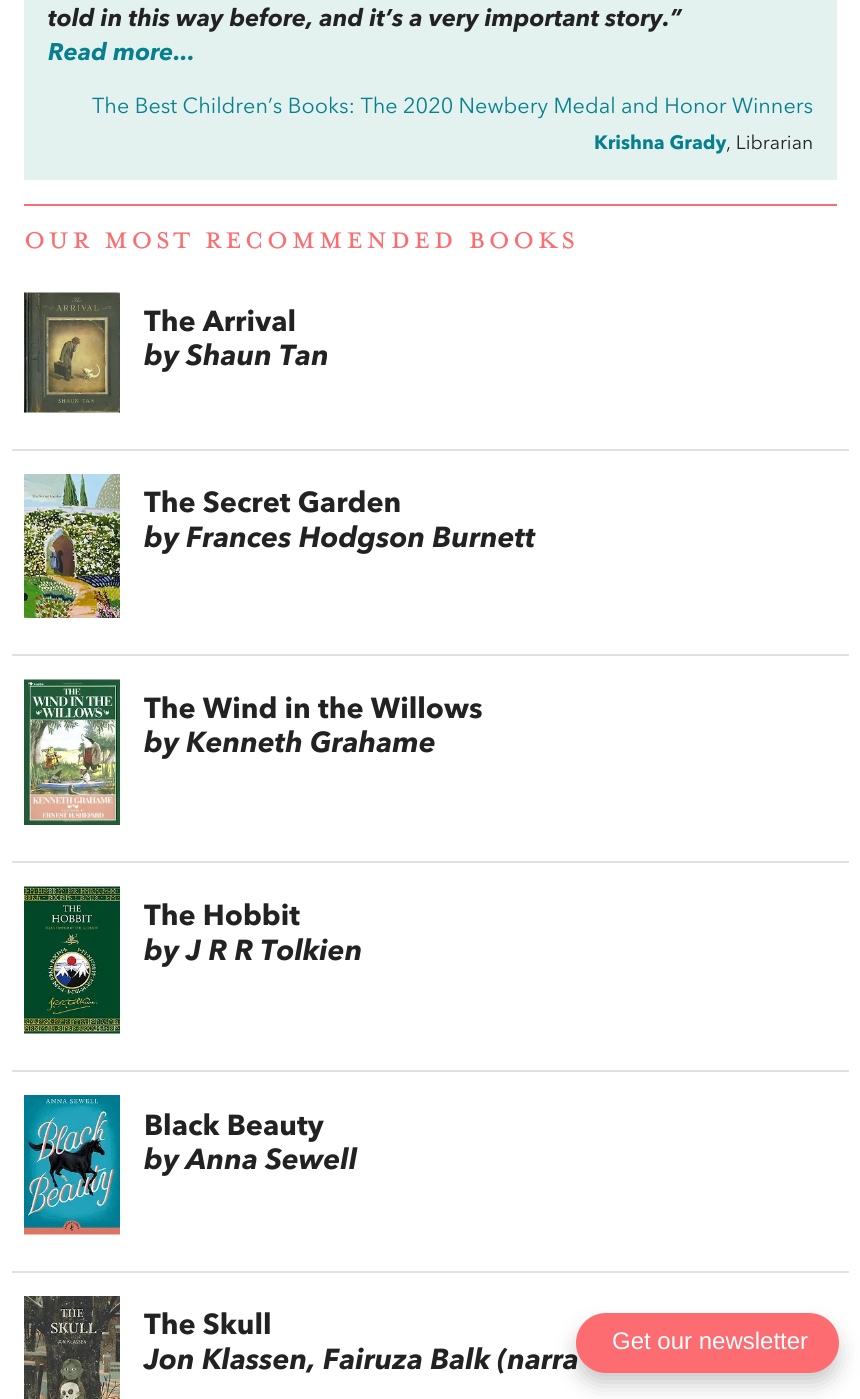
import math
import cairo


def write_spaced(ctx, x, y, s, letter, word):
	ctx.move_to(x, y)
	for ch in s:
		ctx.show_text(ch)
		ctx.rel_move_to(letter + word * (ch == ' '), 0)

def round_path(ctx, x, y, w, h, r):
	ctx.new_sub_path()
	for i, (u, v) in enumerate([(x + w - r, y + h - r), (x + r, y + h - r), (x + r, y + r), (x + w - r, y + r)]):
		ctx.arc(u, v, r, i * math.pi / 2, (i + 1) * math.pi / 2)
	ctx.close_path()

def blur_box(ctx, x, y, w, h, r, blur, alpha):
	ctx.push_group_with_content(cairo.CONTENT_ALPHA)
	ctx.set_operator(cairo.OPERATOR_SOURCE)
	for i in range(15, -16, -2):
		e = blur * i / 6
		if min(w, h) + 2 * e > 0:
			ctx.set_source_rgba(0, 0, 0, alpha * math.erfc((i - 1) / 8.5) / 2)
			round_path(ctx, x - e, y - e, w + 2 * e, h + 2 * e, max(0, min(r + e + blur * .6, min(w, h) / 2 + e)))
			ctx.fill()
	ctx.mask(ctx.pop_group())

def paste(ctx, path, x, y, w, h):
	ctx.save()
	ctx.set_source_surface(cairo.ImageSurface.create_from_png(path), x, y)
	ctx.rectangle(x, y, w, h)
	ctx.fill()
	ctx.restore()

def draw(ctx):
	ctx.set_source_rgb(1, 1, 1)
	ctx.paint()
	ctx.set_source_rgb(0.89, 0.949, 0.937)
	ctx.rectangle(24, 0, 813, 180)
	ctx.fill()
	ctx.select_font_face('Avenir Next', cairo.FONT_SLANT_ITALIC, cairo.FONT_WEIGHT_BOLD)
	ctx.set_font_size(24)
	ctx.set_source_rgb(0.133, 0.133, 0.133)
	ctx.move_to(48, 26)
	ctx.show_text('told in this way before, and it’s a very important story.”')
	ctx.set_source_rgb(0.031, 0.498, 0.557)
	ctx.move_to(48, 60)
	ctx.show_text('Read more...')
	ctx.select_font_face('Avenir Next')
	ctx.set_font_size(21.6)
	ctx.move_to(92, 113)
	ctx.show_text('The Best Children’s Books: The 2020 Newbery Medal and Honor Winners')
	ctx.select_font_face('Avenir Next', cairo.FONT_SLANT_NORMAL, cairo.FONT_WEIGHT_BOLD)
	ctx.set_font_size(19.25)
	ctx.move_to(594, 149)
	ctx.show_text('Krishna Grady')
	ctx.select_font_face('Avenir Next')
	ctx.set_source_rgb(0.133, 0.133, 0.133)
	ctx.move_to(726, 149)
	ctx.show_text(', Librarian')
	ctx.set_source_rgb(0.992, 0.427, 0.435)
	ctx.rectangle(24, 204, 813, 2)
	ctx.fill()
	ctx.select_font_face('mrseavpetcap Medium')
	ctx.set_font_size(36)
	write_spaced(ctx, 24, 248, 'OUR MOST RECOMMENDED BOOKS', 3, 0)
	paste(ctx, 'media/1.png', 24, 292, 96, 121)
	ctx.select_font_face('Avenir Next', cairo.FONT_SLANT_NORMAL, cairo.FONT_WEIGHT_BOLD)
	ctx.set_font_size(28.75)
	ctx.set_source_rgb(0.133, 0.133, 0.133)
	ctx.move_to(144, 331)
	ctx.show_text('The Arrival')
	ctx.select_font_face('Avenir Next', cairo.FONT_SLANT_ITALIC, cairo.FONT_WEIGHT_BOLD)
	ctx.move_to(144, 365)
	ctx.show_text('by Shaun Tan')
	ctx.set_source_rgb(0.882, 0.882, 0.882)
	ctx.rectangle(12, 449, 837, 2)
	ctx.fill()
	paste(ctx, 'media/2.png', 24, 474, 96, 144)
	ctx.select_font_face('Avenir Next', cairo.FONT_SLANT_NORMAL, cairo.FONT_WEIGHT_BOLD)
	ctx.set_source_rgb(0.133, 0.133, 0.133)
	ctx.move_to(144, 512)
	ctx.show_text('The Secret Garden')
	ctx.select_font_face('Avenir Next', cairo.FONT_SLANT_ITALIC, cairo.FONT_WEIGHT_BOLD)
	ctx.move_to(144, 547)
	ctx.show_text('by Frances Hodgson Burnett')
	ctx.set_source_rgb(0.882, 0.882, 0.882)
	ctx.rectangle(12, 654, 837, 2)
	ctx.fill()
	paste(ctx, 'media/3.png', 24, 679, 96, 146)
	ctx.select_font_face('Avenir Next', cairo.FONT_SLANT_NORMAL, cairo.FONT_WEIGHT_BOLD)
	ctx.set_source_rgb(0.133, 0.133, 0.133)
	ctx.move_to(144, 718)
	ctx.show_text('The Wind in the Willows')
	ctx.select_font_face('Avenir Next', cairo.FONT_SLANT_ITALIC, cairo.FONT_WEIGHT_BOLD)
	ctx.move_to(144, 752)
	ctx.show_text('by Kenneth Grahame')
	ctx.set_source_rgb(0.882, 0.882, 0.882)
	ctx.rectangle(12, 861, 837, 2)
	ctx.fill()
	paste(ctx, 'media/4.png', 24, 886, 96, 148)
	ctx.select_font_face('Avenir Next', cairo.FONT_SLANT_NORMAL, cairo.FONT_WEIGHT_BOLD)
	ctx.set_source_rgb(0.133, 0.133, 0.133)
	ctx.move_to(144, 925)
	ctx.show_text('The Hobbit')
	ctx.select_font_face('Avenir Next', cairo.FONT_SLANT_ITALIC, cairo.FONT_WEIGHT_BOLD)
	ctx.move_to(144, 960)
	ctx.show_text('by J R R Tolkien')
	ctx.set_source_rgb(0.882, 0.882, 0.882)
	ctx.rectangle(12, 1070, 837, 2)
	ctx.fill()
	paste(ctx, 'media/5.png', 24, 1095, 96, 140)
	ctx.select_font_face('Avenir Next', cairo.FONT_SLANT_NORMAL, cairo.FONT_WEIGHT_BOLD)
	ctx.set_source_rgb(0.133, 0.133, 0.133)
	ctx.move_to(144, 1135)
	ctx.show_text('Black Beauty')
	ctx.select_font_face('Avenir Next', cairo.FONT_SLANT_ITALIC, cairo.FONT_WEIGHT_BOLD)
	ctx.move_to(144, 1169)
	ctx.show_text('by Anna Sewell')
	ctx.set_source_rgb(0.882, 0.882, 0.882)
	ctx.rectangle(12, 1271, 837, 2)
	ctx.fill()
	paste(ctx, 'media/6.png', 24, 1296, 96, 103)
	ctx.select_font_face('Avenir Next', cairo.FONT_SLANT_NORMAL, cairo.FONT_WEIGHT_BOLD)
	ctx.set_source_rgb(0.133, 0.133, 0.133)
	ctx.move_to(144, 1334)
	ctx.show_text('The Skull')
	ctx.select_font_face('Avenir Next', cairo.FONT_SLANT_ITALIC, cairo.FONT_WEIGHT_BOLD)
	ctx.move_to(144, 1369)
	ctx.show_text('Jon Klassen, Fairuza Balk (narra')
	ctx.set_source_rgb(0, 0, 0)
	blur_box(ctx, 579, 1328, 257, 54, 27, 12, 0.24)
	ctx.set_source_rgb(0.992, 0.424, 0.443)
	round_path(ctx, 576, 1313, 263, 60, 30)
	ctx.fill()
	ctx.select_font_face('Liberation Sans')
	ctx.set_font_size(24)
	ctx.set_source_rgb(1, 1, 1)
	ctx.move_to(612, 1349)
	ctx.show_text('Get our newsletter')


surface = cairo.ImageSurface(cairo.FORMAT_RGB24, 860, 1399)
ctx = cairo.Context(surface)
options = cairo.FontOptions()
options.set_hint_metrics(cairo.HINT_METRICS_OFF)
options.set_hint_style(cairo.HINT_STYLE_NONE)
ctx.set_font_options(options)
ctx.set_miter_limit(4)
draw(ctx)
surface.write_to_png('image.png')
